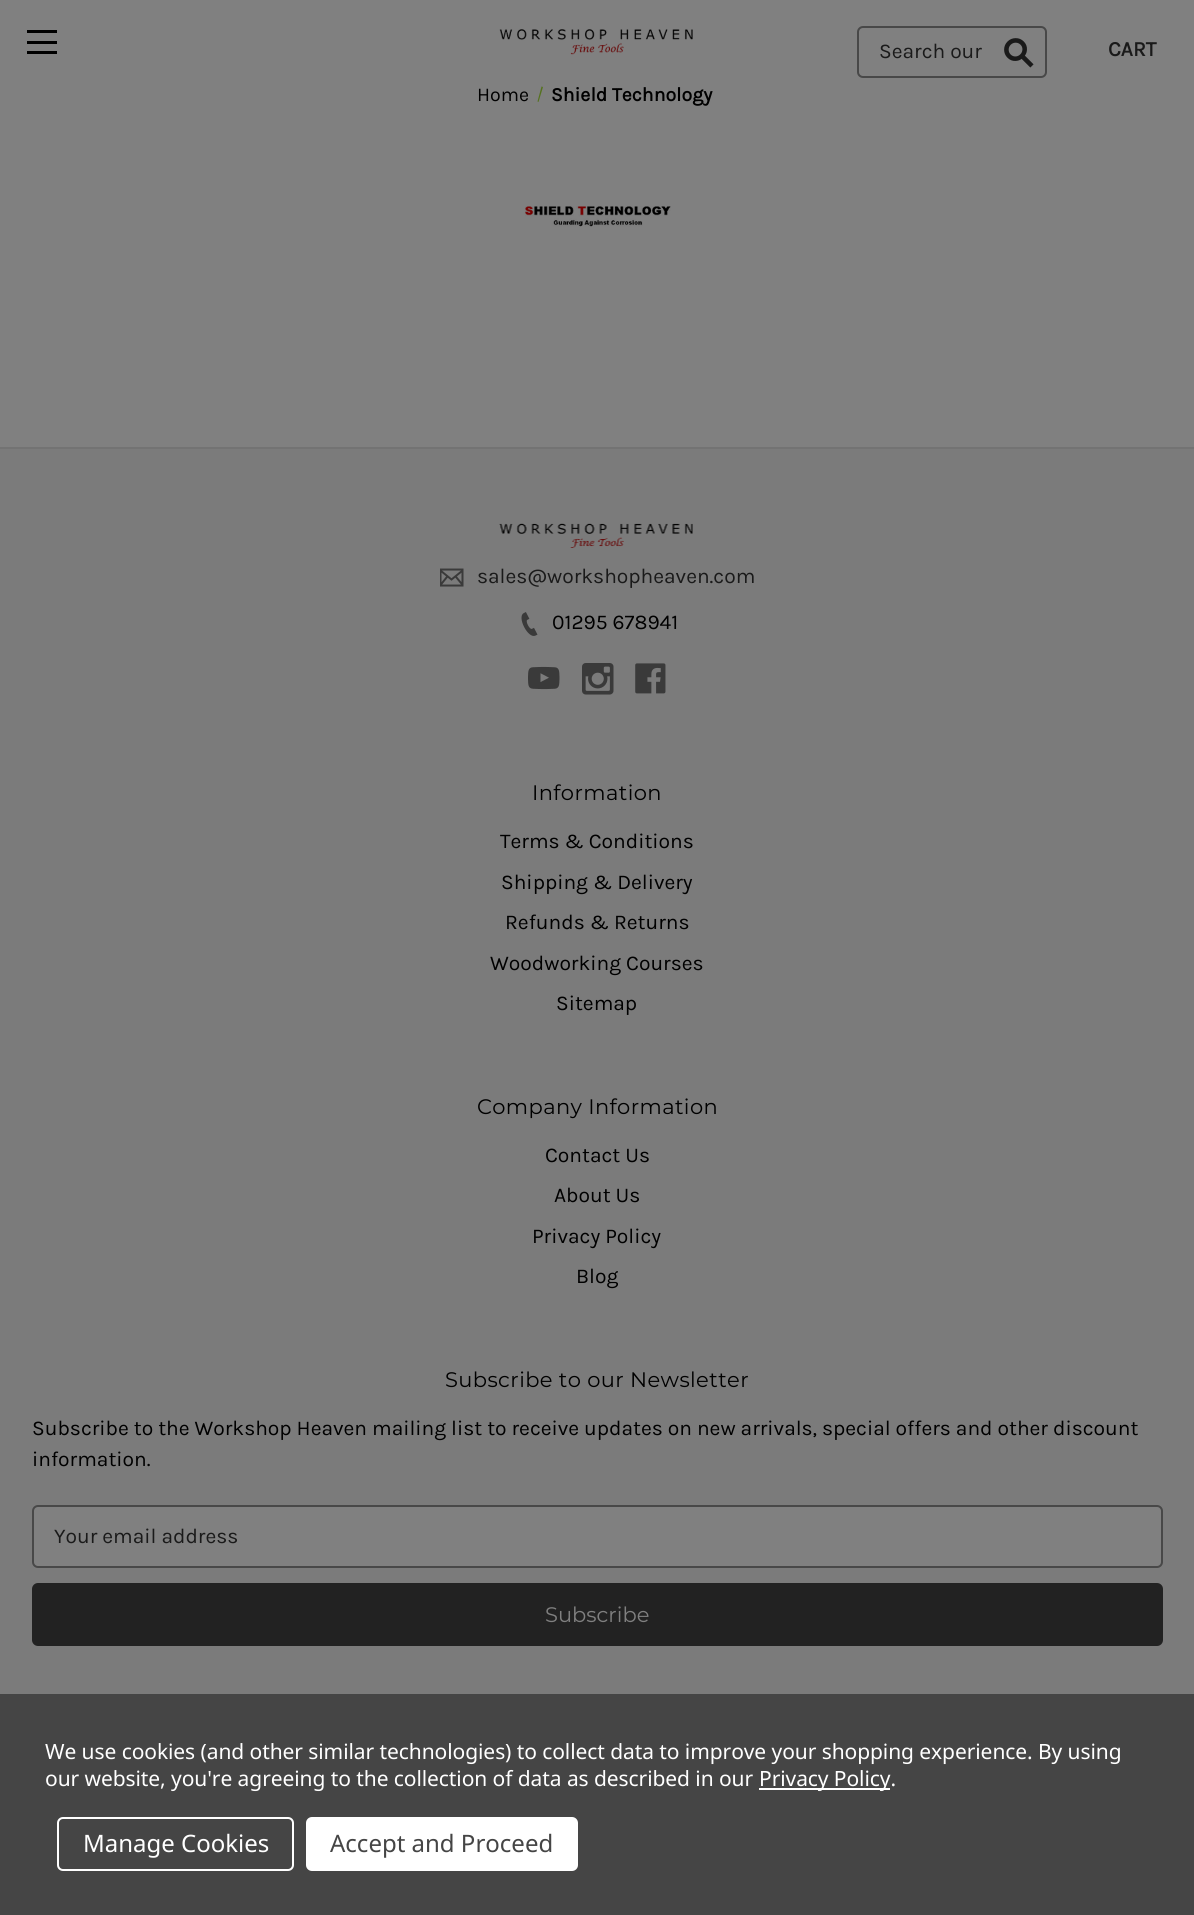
import math
import cairo


def write_spaced(ctx, x, y, s, letter, word):
	ctx.move_to(x, y)
	for ch in s:
		ctx.show_text(ch)
		ctx.rel_move_to(letter + word * (ch == ' '), 0)

def round_path(ctx, x, y, w, h, r):
	ctx.new_sub_path()
	for i, (u, v) in enumerate([(x + w - r, y + h - r), (x + r, y + h - r), (x + r, y + r), (x + w - r, y + r)]):
		ctx.arc(u, v, r, i * math.pi / 2, (i + 1) * math.pi / 2)
	ctx.close_path()

def paste(ctx, path, x, y, w, h):
	ctx.save()
	ctx.set_source_surface(cairo.ImageSurface.create_from_png(path), x, y)
	ctx.rectangle(x, y, w, h)
	ctx.fill()
	ctx.restore()

def draw(ctx):
	ctx.set_source_rgb(0.502, 0.502, 0.502)
	ctx.paint()
	ctx.set_source_rgb(0, 0, 0)
	ctx.rectangle(27, 41, 30, 3)
	ctx.rectangle(27, 30, 30, 3)
	ctx.rectangle(27, 51, 30, 3)
	ctx.fill()
	paste(ctx, 'media/1.png', 499, 29, 194, 26)
	round_path(ctx, 858, 27, 188, 50, 5)
	ctx.set_source_rgb(0.282, 0.282, 0.282)
	ctx.stroke()
	ctx.select_font_face('Karla')
	ctx.set_font_size(21)
	ctx.set_source_rgb(0.102, 0.102, 0.102)
	ctx.move_to(879, 58)
	ctx.show_text('Search our')
	ctx.select_font_face('DejaVu Sans', cairo.FONT_SLANT_NORMAL, cairo.FONT_WEIGHT_BOLD)
	ctx.set_font_size(39)
	ctx.save()
	ctx.translate(1018, 73)
	ctx.rotate(-45 * math.pi / 180)
	ctx.move_to(0, 0)
	ctx.show_text('⚲')
	ctx.restore()
	ctx.select_font_face('Karla', cairo.FONT_SLANT_NORMAL, cairo.FONT_WEIGHT_BOLD)
	ctx.set_font_size(21)
	ctx.move_to(1108, 56)
	ctx.show_text('CART')
	ctx.select_font_face('Karla')
	ctx.set_font_size(19.5)
	ctx.set_source_rgb(0, 0, 0)
	ctx.move_to(477, 101)
	ctx.show_text('Home')
	ctx.set_source_rgb(0.333, 0.447, 0.118)
	ctx.new_path()
	ctx.move_to(541.5, 86.5)
	ctx.line_to(543, 87)
	ctx.line_to(538.5, 102)
	ctx.line_to(537.5, 101.5)
	ctx.close_path()
	ctx.fill()
	ctx.select_font_face('Karla', cairo.FONT_SLANT_NORMAL, cairo.FONT_WEIGHT_BOLD)
	ctx.set_source_rgb(0, 0, 0)
	ctx.move_to(551, 101)
	ctx.show_text('Shield Technology')
	paste(ctx, 'media/2.png', 525, 206, 146, 21)
	ctx.set_source_rgb(0.482, 0.482, 0.482)
	ctx.rectangle(0, 449, 1194, 1245)
	ctx.fill()
	ctx.set_source_rgb(0.451, 0.451, 0.451)
	ctx.rectangle(0, 447, 1194, 2)
	ctx.fill()
	paste(ctx, 'media/3.png', 499, 523, 194, 25)
	paste(ctx, 'media/4.png', 440, 568, 24, 19)
	ctx.select_font_face('Karla')
	ctx.set_font_size(21)
	ctx.set_source_rgb(0.102, 0.102, 0.102)
	ctx.move_to(477, 583)
	ctx.show_text('sales@workshopheaven.com')
	paste(ctx, 'media/5.png', 521, 612, 17, 24)
	ctx.set_source_rgb(0, 0, 0)
	ctx.move_to(552, 629)
	ctx.show_text('01295 678941')
	paste(ctx, 'media/6.png', 528, 666, 32, 24)
	paste(ctx, 'media/7.png', 582, 663, 32, 32)
	paste(ctx, 'media/8.png', 635, 663, 31, 31)
	ctx.select_font_face('Montserrat')
	write_spaced(ctx, 532, 800, 'Information', 0.4, 0)
	ctx.select_font_face('Karla')
	for x, y, s in [
		(500, 848, 'Terms & Conditions'),
		(501, 889, 'Shipping & Delivery'),
		(505, 929, 'Refunds & Returns'),
		(490, 970, 'Woodworking Courses'),
		(556, 1010, 'Sitemap'),
	]:
		ctx.move_to(x, y)
		ctx.show_text(s)
	ctx.select_font_face('Montserrat')
	write_spaced(ctx, 477, 1114, 'Company Information', 0.4, 0)
	ctx.select_font_face('Karla')
	for x, y, s in [
		(545, 1162, 'Contact Us'),
		(554, 1202, 'About Us'),
		(532, 1243, 'Privacy Policy'),
		(576, 1283, 'Blog'),
	]:
		ctx.move_to(x, y)
		ctx.show_text(s)
	ctx.select_font_face('Montserrat')
	write_spaced(ctx, 445, 1387, 'Subscribe to our Newsletter', 0.4, 0)
	ctx.select_font_face('Karla')
	ctx.move_to(32, 1435)
	ctx.show_text('Subscribe to the Workshop Heaven mailing list to receive updates on new arrivals, special offers and other discount')
	ctx.move_to(32, 1466)
	ctx.show_text('information.')
	ctx.set_source_rgb(0.502, 0.502, 0.502)
	round_path(ctx, 33, 1506, 1129, 61, 5)
	ctx.fill_preserve()
	ctx.set_source_rgb(0.282, 0.282, 0.282)
	ctx.stroke()
	ctx.set_source_rgb(0.102, 0.102, 0.102)
	ctx.move_to(54, 1543)
	ctx.show_text('Your email address')
	ctx.set_source_rgb(0.133, 0.133, 0.133)
	round_path(ctx, 33, 1584, 1129, 61, 5)
	ctx.fill_preserve()
	ctx.stroke()
	ctx.select_font_face('Montserrat')
	ctx.set_source_rgb(0.502, 0.502, 0.502)
	ctx.move_to(545, 1622)
	ctx.show_text('Subscribe')
	ctx.set_source_rgb(0.271, 0.271, 0.271)
	ctx.rectangle(0, 1694, 1194, 221)
	ctx.fill()
	ctx.select_font_face('Noto Sans')
	ctx.set_source_rgb(1, 1, 1)
	write_spaced(ctx, 45, 1759, 'We use cookies (and other similar technologies) to collect data to improve your shopping experience. By using', -0.08, 0)
	write_spaced(ctx, 45, 1786, 'our website, you\'re agreeing to the collection of data as described in our', -0.08, 0)
	ctx.rectangle(759, 1788, 131, 2)
	ctx.fill()
	write_spaced(ctx, 759, 1786, 'Privacy Policy.', -0.08, 0)
	round_path(ctx, 58, 1818, 235, 52, 5)
	ctx.stroke()
	ctx.set_font_size(24)
	ctx.move_to(83, 1852)
	ctx.show_text('Manage Cookies')
	round_path(ctx, 306, 1817, 272, 54, 6)
	ctx.fill()
	ctx.set_source_rgb(0.271, 0.271, 0.271)
	ctx.move_to(330, 1852)
	ctx.show_text('Accept and Proceed')


surface = cairo.ImageSurface(cairo.FORMAT_RGB24, 1194, 1915)
ctx = cairo.Context(surface)
options = cairo.FontOptions()
options.set_hint_metrics(cairo.HINT_METRICS_OFF)
options.set_hint_style(cairo.HINT_STYLE_NONE)
ctx.set_font_options(options)
ctx.set_miter_limit(4)
draw(ctx)
surface.write_to_png('image.png')
